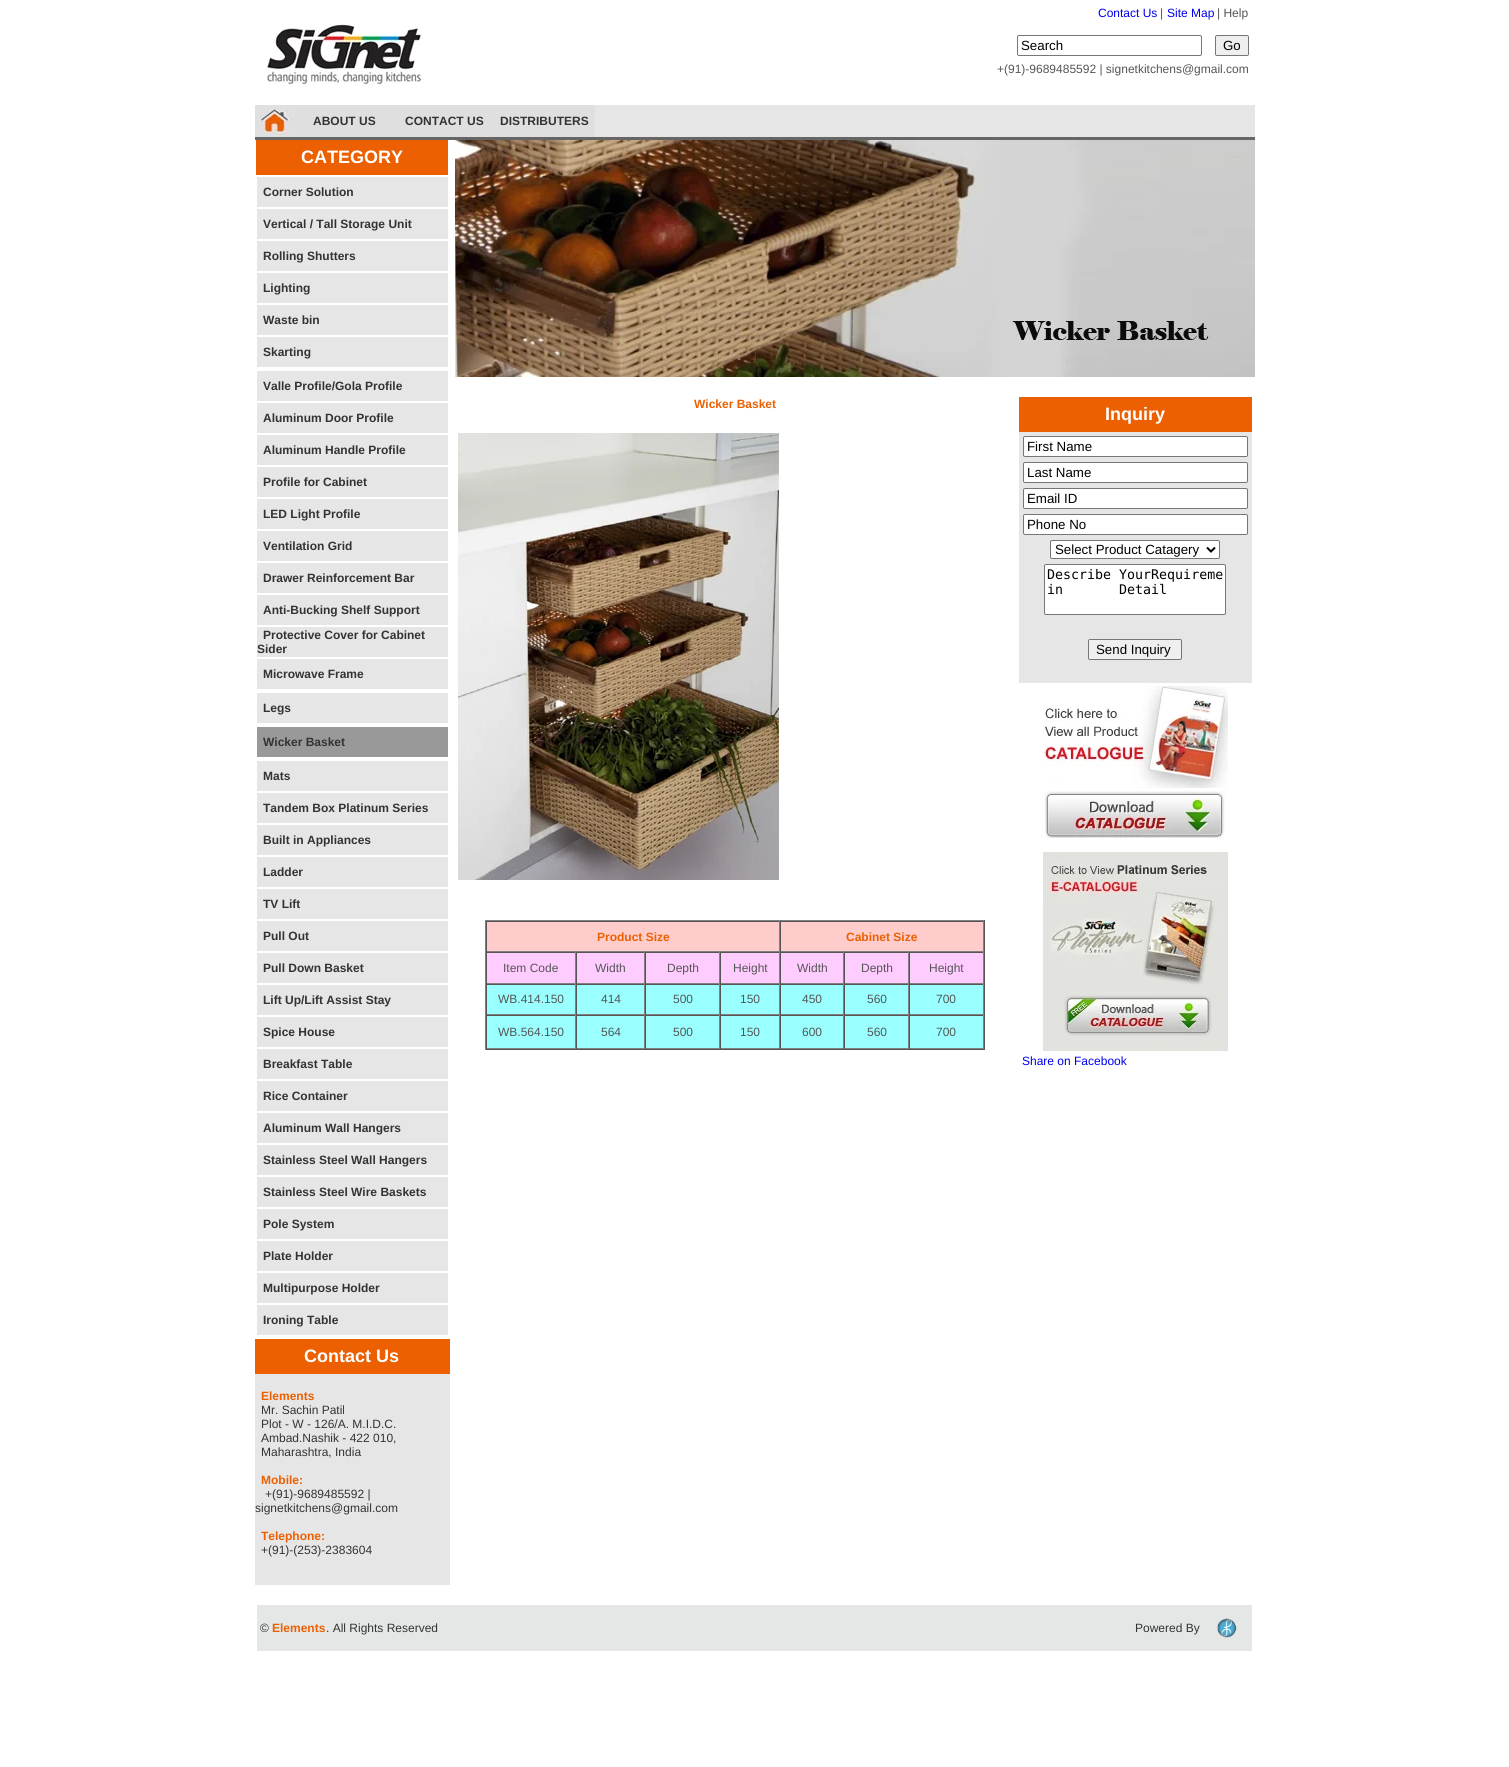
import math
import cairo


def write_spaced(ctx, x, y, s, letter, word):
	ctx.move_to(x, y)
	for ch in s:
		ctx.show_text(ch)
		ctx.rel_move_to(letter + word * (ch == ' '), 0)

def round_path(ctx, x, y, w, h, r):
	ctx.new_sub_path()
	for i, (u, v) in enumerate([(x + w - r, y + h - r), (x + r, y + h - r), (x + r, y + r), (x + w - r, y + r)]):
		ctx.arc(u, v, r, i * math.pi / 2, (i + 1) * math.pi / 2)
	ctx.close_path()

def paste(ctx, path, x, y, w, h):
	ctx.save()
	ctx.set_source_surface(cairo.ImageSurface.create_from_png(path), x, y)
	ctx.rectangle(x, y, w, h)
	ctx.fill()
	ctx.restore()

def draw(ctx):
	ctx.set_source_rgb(1, 1, 1)
	ctx.paint()
	paste(ctx, 'media/1.png', 266, 23, 156, 64)
	ctx.select_font_face('Liberation Sans')
	ctx.set_font_size(12)
	ctx.set_source_rgb(0, 0, 0.933)
	ctx.move_to(1098, 17)
	ctx.show_text('Contact Us')
	ctx.set_source_rgb(0.333, 0.333, 0.333)
	ctx.move_to(1160, 17)
	ctx.show_text('|')
	ctx.set_source_rgb(0, 0, 0.933)
	ctx.move_to(1167, 17)
	ctx.show_text('Site Map')
	ctx.set_source_rgb(0.333, 0.333, 0.333)
	ctx.move_to(1217, 17)
	ctx.show_text('| Help')
	round_path(ctx, 1017.5, 35.5, 184, 20, 1.5)
	ctx.set_source_rgb(0.463, 0.463, 0.463)
	ctx.set_line_width(1)
	ctx.stroke()
	ctx.set_font_size(13.3)
	ctx.set_source_rgb(0, 0, 0)
	ctx.move_to(1021, 50)
	ctx.show_text('Search')
	ctx.set_source_rgb(0.937, 0.937, 0.937)
	round_path(ctx, 1215.5, 35.5, 33, 20, 1.5)
	ctx.fill_preserve()
	ctx.set_source_rgb(0.463, 0.463, 0.463)
	ctx.stroke()
	ctx.set_source_rgb(0, 0, 0)
	ctx.move_to(1223, 50)
	ctx.show_text('Go')
	ctx.set_font_size(12)
	ctx.set_source_rgb(0.333, 0.333, 0.333)
	ctx.move_to(997, 73)
	ctx.show_text('+(91)-9689485592 | signetkitchens@gmail.com')
	paste(ctx, 'media/2.png', 255, 105, 40, 32)
	ctx.set_source_rgb(0.875, 0.875, 0.875)
	ctx.rectangle(295, 105, 300, 32)
	ctx.fill()
	ctx.select_font_face('Liberation Sans', cairo.FONT_SLANT_NORMAL, cairo.FONT_WEIGHT_BOLD)
	ctx.set_source_rgb(0.2, 0.2, 0.2)
	for x, y, s in [
		(313, 125, 'ABOUT US'),
		(405, 125, 'CONTACT US'),
		(500, 125, 'DISTRIBUTERS'),
	]:
		ctx.move_to(x, y)
		ctx.show_text(s)
	ctx.set_source_rgb(0.902, 0.902, 0.902)
	ctx.rectangle(595, 105, 660, 32)
	ctx.fill()
	ctx.set_source_rgb(0.4, 0.4, 0.4)
	ctx.rectangle(255, 137, 1000, 3)
	ctx.fill()
	ctx.set_source_rgb(0.925, 0.376, 0.004)
	ctx.rectangle(256, 140, 192, 35)
	ctx.fill()
	ctx.set_font_size(18)
	ctx.set_source_rgb(1, 1, 1)
	ctx.move_to(301, 163)
	ctx.show_text('CATEGORY')
	ctx.set_source_rgb(0.902, 0.902, 0.902)
	ctx.rectangle(257, 177, 191, 30)
	ctx.fill()
	ctx.set_font_size(12)
	ctx.set_source_rgb(0.2, 0.2, 0.2)
	ctx.move_to(263, 196)
	ctx.show_text('Corner Solution')
	ctx.set_source_rgb(0.902, 0.902, 0.902)
	ctx.rectangle(257, 209, 191, 30)
	ctx.fill()
	ctx.set_source_rgb(0.2, 0.2, 0.2)
	ctx.move_to(263, 228)
	ctx.show_text('Vertical / Tall Storage Unit')
	ctx.set_source_rgb(0.902, 0.902, 0.902)
	ctx.rectangle(257, 241, 191, 30)
	ctx.fill()
	ctx.set_source_rgb(0.2, 0.2, 0.2)
	ctx.move_to(263, 260)
	ctx.show_text('Rolling Shutters')
	ctx.set_source_rgb(0.902, 0.902, 0.902)
	ctx.rectangle(257, 273, 191, 30)
	ctx.fill()
	ctx.set_source_rgb(0.2, 0.2, 0.2)
	ctx.move_to(263, 292)
	ctx.show_text('Lighting')
	ctx.set_source_rgb(0.902, 0.902, 0.902)
	ctx.rectangle(257, 305, 191, 30)
	ctx.fill()
	ctx.set_source_rgb(0.2, 0.2, 0.2)
	ctx.move_to(263, 324)
	ctx.show_text('Waste bin')
	ctx.set_source_rgb(0.902, 0.902, 0.902)
	ctx.rectangle(257, 337, 191, 30)
	ctx.fill()
	ctx.set_source_rgb(0.2, 0.2, 0.2)
	ctx.move_to(263, 356)
	ctx.show_text('Skarting')
	ctx.set_source_rgb(0.902, 0.902, 0.902)
	ctx.rectangle(257, 371, 191, 30)
	ctx.fill()
	ctx.set_source_rgb(0.2, 0.2, 0.2)
	ctx.move_to(263, 390)
	ctx.show_text('Valle Profile/Gola Profile')
	ctx.set_source_rgb(0.902, 0.902, 0.902)
	ctx.rectangle(257, 403, 191, 30)
	ctx.fill()
	ctx.set_source_rgb(0.2, 0.2, 0.2)
	ctx.move_to(263, 422)
	ctx.show_text('Aluminum Door Profile')
	ctx.set_source_rgb(0.902, 0.902, 0.902)
	ctx.rectangle(257, 435, 191, 30)
	ctx.fill()
	ctx.set_source_rgb(0.2, 0.2, 0.2)
	ctx.move_to(263, 454)
	ctx.show_text('Aluminum Handle Profile')
	ctx.set_source_rgb(0.902, 0.902, 0.902)
	ctx.rectangle(257, 467, 191, 30)
	ctx.fill()
	ctx.set_source_rgb(0.2, 0.2, 0.2)
	ctx.move_to(263, 486)
	ctx.show_text('Profile for Cabinet')
	ctx.set_source_rgb(0.902, 0.902, 0.902)
	ctx.rectangle(257, 499, 191, 30)
	ctx.fill()
	ctx.set_source_rgb(0.2, 0.2, 0.2)
	ctx.move_to(263, 518)
	ctx.show_text('LED Light Profile')
	ctx.set_source_rgb(0.902, 0.902, 0.902)
	ctx.rectangle(257, 531, 191, 30)
	ctx.fill()
	ctx.set_source_rgb(0.2, 0.2, 0.2)
	ctx.move_to(263, 550)
	ctx.show_text('Ventilation Grid')
	ctx.set_source_rgb(0.902, 0.902, 0.902)
	ctx.rectangle(257, 563, 191, 30)
	ctx.fill()
	ctx.set_source_rgb(0.2, 0.2, 0.2)
	ctx.move_to(263, 582)
	ctx.show_text('Drawer Reinforcement Bar')
	ctx.set_source_rgb(0.902, 0.902, 0.902)
	ctx.rectangle(257, 595, 191, 30)
	ctx.fill()
	ctx.set_source_rgb(0.2, 0.2, 0.2)
	ctx.move_to(263, 614)
	ctx.show_text('Anti-Bucking Shelf Support')
	ctx.set_source_rgb(0.902, 0.902, 0.902)
	ctx.rectangle(257, 627, 191, 30)
	ctx.fill()
	ctx.set_source_rgb(0.2, 0.2, 0.2)
	ctx.move_to(263, 639)
	ctx.show_text('Protective Cover for Cabinet')
	ctx.move_to(257, 653)
	ctx.show_text('Sider')
	ctx.set_source_rgb(0.902, 0.902, 0.902)
	ctx.rectangle(257, 659, 191, 30)
	ctx.fill()
	ctx.set_source_rgb(0.2, 0.2, 0.2)
	ctx.move_to(263, 678)
	ctx.show_text('Microwave Frame')
	ctx.set_source_rgb(0.902, 0.902, 0.902)
	ctx.rectangle(257, 693, 191, 30)
	ctx.fill()
	ctx.set_source_rgb(0.2, 0.2, 0.2)
	ctx.move_to(263, 712)
	ctx.show_text('Legs')
	ctx.set_source_rgb(0.6, 0.6, 0.6)
	ctx.rectangle(257, 727, 191, 30)
	ctx.fill()
	ctx.set_source_rgb(0.2, 0.2, 0.2)
	ctx.move_to(263, 746)
	ctx.show_text('Wicker Basket')
	ctx.set_source_rgb(0.902, 0.902, 0.902)
	ctx.rectangle(257, 761, 191, 30)
	ctx.fill()
	ctx.set_source_rgb(0.2, 0.2, 0.2)
	ctx.move_to(263, 780)
	ctx.show_text('Mats')
	ctx.set_source_rgb(0.902, 0.902, 0.902)
	ctx.rectangle(257, 793, 191, 30)
	ctx.fill()
	ctx.set_source_rgb(0.2, 0.2, 0.2)
	ctx.move_to(263, 812)
	ctx.show_text('Tandem Box Platinum Series')
	ctx.set_source_rgb(0.902, 0.902, 0.902)
	ctx.rectangle(257, 825, 191, 30)
	ctx.fill()
	ctx.set_source_rgb(0.2, 0.2, 0.2)
	ctx.move_to(263, 844)
	ctx.show_text('Built in Appliances')
	ctx.set_source_rgb(0.902, 0.902, 0.902)
	ctx.rectangle(257, 857, 191, 30)
	ctx.fill()
	ctx.set_source_rgb(0.2, 0.2, 0.2)
	ctx.move_to(263, 876)
	ctx.show_text('Ladder')
	ctx.set_source_rgb(0.902, 0.902, 0.902)
	ctx.rectangle(257, 889, 191, 30)
	ctx.fill()
	ctx.set_source_rgb(0.2, 0.2, 0.2)
	ctx.move_to(263, 908)
	ctx.show_text('TV Lift')
	ctx.set_source_rgb(0.902, 0.902, 0.902)
	ctx.rectangle(257, 921, 191, 30)
	ctx.fill()
	ctx.set_source_rgb(0.2, 0.2, 0.2)
	ctx.move_to(263, 940)
	ctx.show_text('Pull Out')
	ctx.set_source_rgb(0.902, 0.902, 0.902)
	ctx.rectangle(257, 953, 191, 30)
	ctx.fill()
	ctx.set_source_rgb(0.2, 0.2, 0.2)
	ctx.move_to(263, 972)
	ctx.show_text('Pull Down Basket')
	ctx.set_source_rgb(0.902, 0.902, 0.902)
	ctx.rectangle(257, 985, 191, 30)
	ctx.fill()
	ctx.set_source_rgb(0.2, 0.2, 0.2)
	ctx.move_to(263, 1004)
	ctx.show_text('Lift Up/Lift Assist Stay')
	ctx.set_source_rgb(0.902, 0.902, 0.902)
	ctx.rectangle(257, 1017, 191, 30)
	ctx.fill()
	ctx.set_source_rgb(0.2, 0.2, 0.2)
	ctx.move_to(263, 1036)
	ctx.show_text('Spice House')
	ctx.set_source_rgb(0.902, 0.902, 0.902)
	ctx.rectangle(257, 1049, 191, 30)
	ctx.fill()
	ctx.set_source_rgb(0.2, 0.2, 0.2)
	ctx.move_to(263, 1068)
	ctx.show_text('Breakfast Table')
	ctx.set_source_rgb(0.902, 0.902, 0.902)
	ctx.rectangle(257, 1081, 191, 30)
	ctx.fill()
	ctx.set_source_rgb(0.2, 0.2, 0.2)
	ctx.move_to(263, 1100)
	ctx.show_text('Rice Container')
	ctx.set_source_rgb(0.902, 0.902, 0.902)
	ctx.rectangle(257, 1113, 191, 30)
	ctx.fill()
	ctx.set_source_rgb(0.2, 0.2, 0.2)
	ctx.move_to(263, 1132)
	ctx.show_text('Aluminum Wall Hangers')
	ctx.set_source_rgb(0.902, 0.902, 0.902)
	ctx.rectangle(257, 1145, 191, 30)
	ctx.fill()
	ctx.set_source_rgb(0.2, 0.2, 0.2)
	ctx.move_to(263, 1164)
	ctx.show_text('Stainless Steel Wall Hangers')
	ctx.set_source_rgb(0.902, 0.902, 0.902)
	ctx.rectangle(257, 1177, 191, 30)
	ctx.fill()
	ctx.set_source_rgb(0.2, 0.2, 0.2)
	ctx.move_to(263, 1196)
	ctx.show_text('Stainless Steel Wire Baskets')
	ctx.set_source_rgb(0.902, 0.902, 0.902)
	ctx.rectangle(257, 1209, 191, 30)
	ctx.fill()
	ctx.set_source_rgb(0.2, 0.2, 0.2)
	ctx.move_to(263, 1228)
	ctx.show_text('Pole System')
	ctx.set_source_rgb(0.902, 0.902, 0.902)
	ctx.rectangle(257, 1241, 191, 30)
	ctx.fill()
	ctx.set_source_rgb(0.2, 0.2, 0.2)
	ctx.move_to(263, 1260)
	ctx.show_text('Plate Holder')
	ctx.set_source_rgb(0.902, 0.902, 0.902)
	ctx.rectangle(257, 1273, 191, 30)
	ctx.fill()
	ctx.set_source_rgb(0.2, 0.2, 0.2)
	ctx.move_to(263, 1292)
	ctx.show_text('Multipurpose Holder')
	ctx.set_source_rgb(0.902, 0.902, 0.902)
	ctx.rectangle(257, 1305, 191, 30)
	ctx.fill()
	ctx.set_source_rgb(0.2, 0.2, 0.2)
	ctx.move_to(263, 1324)
	ctx.show_text('Ironing Table')
	ctx.set_source_rgb(0.925, 0.376, 0.004)
	ctx.rectangle(255, 1339, 195, 35)
	ctx.fill()
	ctx.set_font_size(18)
	ctx.set_source_rgb(1, 1, 1)
	ctx.move_to(304, 1362)
	ctx.show_text('Contact Us')
	ctx.set_source_rgb(0.902, 0.902, 0.902)
	ctx.rectangle(255, 1374, 195, 211)
	ctx.fill()
	ctx.set_font_size(12)
	ctx.set_source_rgb(0.925, 0.376, 0.004)
	ctx.move_to(261, 1400)
	ctx.show_text('Elements')
	ctx.select_font_face('Liberation Sans')
	ctx.set_source_rgb(0.2, 0.2, 0.2)
	for x, y, s in [
		(261, 1414, 'Mr. Sachin Patil'),
		(261, 1428, 'Plot - W - 126/A. M.I.D.C.'),
		(261, 1442, 'Ambad.Nashik - 422 010,'),
		(261, 1456, 'Maharashtra, India'),
	]:
		ctx.move_to(x, y)
		ctx.show_text(s)
	ctx.select_font_face('Liberation Sans', cairo.FONT_SLANT_NORMAL, cairo.FONT_WEIGHT_BOLD)
	ctx.set_source_rgb(0.925, 0.376, 0.004)
	ctx.move_to(261, 1484)
	ctx.show_text('Mobile:')
	ctx.select_font_face('Liberation Sans')
	ctx.set_source_rgb(0.2, 0.2, 0.2)
	ctx.move_to(265, 1498)
	ctx.show_text('+(91)-9689485592 |')
	ctx.move_to(255, 1512)
	ctx.show_text('signetkitchens@gmail.com')
	ctx.select_font_face('Liberation Sans', cairo.FONT_SLANT_NORMAL, cairo.FONT_WEIGHT_BOLD)
	ctx.set_source_rgb(0.925, 0.376, 0.004)
	ctx.move_to(261, 1540)
	ctx.show_text('Telephone:')
	ctx.select_font_face('Liberation Sans')
	ctx.set_source_rgb(0.2, 0.2, 0.2)
	ctx.move_to(261, 1554)
	ctx.show_text('+(91)-(253)-2383604')
	paste(ctx, 'media/3.png', 455, 140, 800, 237)
	ctx.select_font_face('Liberation Sans', cairo.FONT_SLANT_NORMAL, cairo.FONT_WEIGHT_BOLD)
	ctx.set_source_rgb(0.925, 0.376, 0.004)
	ctx.move_to(694, 408)
	ctx.show_text('Wicker Basket')
	paste(ctx, 'media/4.png', 458, 433, 321, 447)
	ctx.set_source_rgb(0.502, 0.502, 0.502)
	ctx.rectangle(485, 920, 500, 1)
	ctx.fill()
	ctx.set_source_rgb(0.333, 0.333, 0.333)
	ctx.rectangle(984, 920, 1, 130)
	ctx.rectangle(485, 1049, 500, 1)
	ctx.fill()
	ctx.set_source_rgb(0.502, 0.502, 0.502)
	ctx.rectangle(485, 920, 1, 130)
	ctx.fill()
	ctx.set_source_rgb(1, 0.8, 0.8)
	ctx.rectangle(487, 922, 292, 29)
	ctx.fill()
	ctx.set_source_rgb(0.333, 0.333, 0.333)
	ctx.rectangle(486, 921, 498, 1)
	ctx.fill()
	ctx.set_source_rgb(0.502, 0.502, 0.502)
	ctx.rectangle(779, 921, 1, 31)
	ctx.rectangle(486, 951, 294, 1)
	ctx.fill()
	ctx.set_source_rgb(0.333, 0.333, 0.333)
	ctx.rectangle(486, 921, 1, 31)
	ctx.fill()
	ctx.set_source_rgb(0.925, 0.376, 0.004)
	ctx.move_to(597, 941)
	ctx.show_text('Product Size')
	ctx.set_source_rgb(1, 0.8, 0.8)
	ctx.rectangle(781, 922, 202, 29)
	ctx.fill()
	ctx.set_source_rgb(0.502, 0.502, 0.502)
	ctx.rectangle(983, 921, 1, 31)
	ctx.rectangle(780, 951, 204, 1)
	ctx.fill()
	ctx.set_source_rgb(0.333, 0.333, 0.333)
	ctx.rectangle(780, 921, 1, 31)
	ctx.fill()
	ctx.set_source_rgb(0.925, 0.376, 0.004)
	ctx.move_to(846, 941)
	ctx.show_text('Cabinet Size')
	ctx.set_source_rgb(1, 0.8, 1)
	ctx.rectangle(487, 953, 88, 30)
	ctx.fill()
	ctx.set_source_rgb(0.333, 0.333, 0.333)
	ctx.rectangle(486, 952, 498, 1)
	ctx.fill()
	ctx.set_source_rgb(0.502, 0.502, 0.502)
	ctx.rectangle(575, 952, 1, 32)
	ctx.rectangle(486, 983, 90, 1)
	ctx.fill()
	ctx.set_source_rgb(0.333, 0.333, 0.333)
	ctx.rectangle(486, 952, 1, 32)
	ctx.fill()
	ctx.select_font_face('Liberation Sans')
	ctx.move_to(503, 972)
	ctx.show_text('Item Code')
	ctx.set_source_rgb(1, 0.8, 1)
	ctx.rectangle(577, 953, 67, 30)
	ctx.fill()
	ctx.set_source_rgb(0.502, 0.502, 0.502)
	ctx.rectangle(644, 952, 1, 32)
	ctx.rectangle(576, 983, 69, 1)
	ctx.fill()
	ctx.set_source_rgb(0.333, 0.333, 0.333)
	ctx.rectangle(576, 952, 1, 32)
	ctx.fill()
	ctx.move_to(595, 972)
	ctx.show_text('Width')
	ctx.set_source_rgb(1, 0.8, 1)
	ctx.rectangle(646, 953, 73, 30)
	ctx.fill()
	ctx.set_source_rgb(0.502, 0.502, 0.502)
	ctx.rectangle(719, 952, 1, 32)
	ctx.rectangle(645, 983, 75, 1)
	ctx.fill()
	ctx.set_source_rgb(0.333, 0.333, 0.333)
	ctx.rectangle(645, 952, 1, 32)
	ctx.fill()
	ctx.move_to(667, 972)
	ctx.show_text('Depth')
	ctx.set_source_rgb(1, 0.8, 1)
	ctx.rectangle(721, 953, 58, 30)
	ctx.fill()
	ctx.set_source_rgb(0.502, 0.502, 0.502)
	ctx.rectangle(779, 952, 1, 32)
	ctx.rectangle(720, 983, 60, 1)
	ctx.fill()
	ctx.set_source_rgb(0.333, 0.333, 0.333)
	ctx.rectangle(720, 952, 1, 32)
	ctx.fill()
	ctx.move_to(733, 972)
	ctx.show_text('Height')
	ctx.set_source_rgb(1, 0.8, 1)
	ctx.rectangle(781, 953, 62, 30)
	ctx.fill()
	ctx.set_source_rgb(0.502, 0.502, 0.502)
	ctx.rectangle(843, 952, 1, 32)
	ctx.rectangle(780, 983, 64, 1)
	ctx.fill()
	ctx.set_source_rgb(0.333, 0.333, 0.333)
	ctx.rectangle(780, 952, 1, 32)
	ctx.fill()
	ctx.move_to(797, 972)
	ctx.show_text('Width')
	ctx.set_source_rgb(1, 0.8, 1)
	ctx.rectangle(845, 953, 63, 30)
	ctx.fill()
	ctx.set_source_rgb(0.502, 0.502, 0.502)
	ctx.rectangle(908, 952, 1, 32)
	ctx.rectangle(844, 983, 65, 1)
	ctx.fill()
	ctx.set_source_rgb(0.333, 0.333, 0.333)
	ctx.rectangle(844, 952, 1, 32)
	ctx.fill()
	ctx.move_to(861, 972)
	ctx.show_text('Depth')
	ctx.set_source_rgb(1, 0.8, 1)
	ctx.rectangle(910, 953, 73, 30)
	ctx.fill()
	ctx.set_source_rgb(0.502, 0.502, 0.502)
	ctx.rectangle(983, 952, 1, 32)
	ctx.rectangle(909, 983, 75, 1)
	ctx.fill()
	ctx.set_source_rgb(0.333, 0.333, 0.333)
	ctx.rectangle(909, 952, 1, 32)
	ctx.fill()
	ctx.move_to(929, 972)
	ctx.show_text('Height')
	ctx.set_source_rgb(0.6, 1, 1)
	ctx.rectangle(487, 985, 88, 29)
	ctx.fill()
	ctx.set_source_rgb(0.333, 0.333, 0.333)
	ctx.rectangle(486, 984, 498, 1)
	ctx.fill()
	ctx.set_source_rgb(0.502, 0.502, 0.502)
	ctx.rectangle(575, 984, 1, 31)
	ctx.rectangle(486, 1014, 90, 1)
	ctx.fill()
	ctx.set_source_rgb(0.333, 0.333, 0.333)
	ctx.rectangle(486, 984, 1, 31)
	ctx.fill()
	ctx.move_to(498, 1003)
	ctx.show_text('WB.414.150')
	ctx.set_source_rgb(0.6, 1, 1)
	ctx.rectangle(577, 985, 67, 29)
	ctx.fill()
	ctx.set_source_rgb(0.502, 0.502, 0.502)
	ctx.rectangle(644, 984, 1, 31)
	ctx.rectangle(576, 1014, 69, 1)
	ctx.fill()
	ctx.set_source_rgb(0.333, 0.333, 0.333)
	ctx.rectangle(576, 984, 1, 31)
	ctx.fill()
	ctx.move_to(601, 1003)
	ctx.show_text('414')
	ctx.set_source_rgb(0.6, 1, 1)
	ctx.rectangle(646, 985, 73, 29)
	ctx.fill()
	ctx.set_source_rgb(0.502, 0.502, 0.502)
	ctx.rectangle(719, 984, 1, 31)
	ctx.rectangle(645, 1014, 75, 1)
	ctx.fill()
	ctx.set_source_rgb(0.333, 0.333, 0.333)
	ctx.rectangle(645, 984, 1, 31)
	ctx.fill()
	ctx.move_to(673, 1003)
	ctx.show_text('500')
	ctx.set_source_rgb(0.6, 1, 1)
	ctx.rectangle(721, 985, 58, 29)
	ctx.fill()
	ctx.set_source_rgb(0.502, 0.502, 0.502)
	ctx.rectangle(779, 984, 1, 31)
	ctx.rectangle(720, 1014, 60, 1)
	ctx.fill()
	ctx.set_source_rgb(0.333, 0.333, 0.333)
	ctx.rectangle(720, 984, 1, 31)
	ctx.fill()
	ctx.move_to(740, 1003)
	ctx.show_text('150')
	ctx.set_source_rgb(0.6, 1, 1)
	ctx.rectangle(781, 985, 62, 29)
	ctx.fill()
	ctx.set_source_rgb(0.502, 0.502, 0.502)
	ctx.rectangle(843, 984, 1, 31)
	ctx.rectangle(780, 1014, 64, 1)
	ctx.fill()
	ctx.set_source_rgb(0.333, 0.333, 0.333)
	ctx.rectangle(780, 984, 1, 31)
	ctx.fill()
	ctx.move_to(802, 1003)
	ctx.show_text('450')
	ctx.set_source_rgb(0.6, 1, 1)
	ctx.rectangle(845, 985, 63, 29)
	ctx.fill()
	ctx.set_source_rgb(0.502, 0.502, 0.502)
	ctx.rectangle(908, 984, 1, 31)
	ctx.rectangle(844, 1014, 65, 1)
	ctx.fill()
	ctx.set_source_rgb(0.333, 0.333, 0.333)
	ctx.rectangle(844, 984, 1, 31)
	ctx.fill()
	ctx.move_to(867, 1003)
	ctx.show_text('560')
	ctx.set_source_rgb(0.6, 1, 1)
	ctx.rectangle(910, 985, 73, 29)
	ctx.fill()
	ctx.set_source_rgb(0.502, 0.502, 0.502)
	ctx.rectangle(983, 984, 1, 31)
	ctx.rectangle(909, 1014, 75, 1)
	ctx.fill()
	ctx.set_source_rgb(0.333, 0.333, 0.333)
	ctx.rectangle(909, 984, 1, 31)
	ctx.fill()
	ctx.move_to(936, 1003)
	ctx.show_text('700')
	ctx.set_source_rgb(0.6, 1, 1)
	ctx.rectangle(487, 1016, 88, 32)
	ctx.fill()
	ctx.set_source_rgb(0.333, 0.333, 0.333)
	ctx.rectangle(486, 1015, 498, 1)
	ctx.fill()
	ctx.set_source_rgb(0.502, 0.502, 0.502)
	ctx.rectangle(575, 1015, 1, 34)
	ctx.rectangle(486, 1048, 90, 1)
	ctx.fill()
	ctx.set_source_rgb(0.333, 0.333, 0.333)
	ctx.rectangle(486, 1015, 1, 34)
	ctx.fill()
	ctx.move_to(498, 1036)
	ctx.show_text('WB.564.150')
	ctx.set_source_rgb(0.6, 1, 1)
	ctx.rectangle(577, 1016, 67, 32)
	ctx.fill()
	ctx.set_source_rgb(0.502, 0.502, 0.502)
	ctx.rectangle(644, 1015, 1, 34)
	ctx.rectangle(576, 1048, 69, 1)
	ctx.fill()
	ctx.set_source_rgb(0.333, 0.333, 0.333)
	ctx.rectangle(576, 1015, 1, 34)
	ctx.fill()
	ctx.move_to(601, 1036)
	ctx.show_text('564')
	ctx.set_source_rgb(0.6, 1, 1)
	ctx.rectangle(646, 1016, 73, 32)
	ctx.fill()
	ctx.set_source_rgb(0.502, 0.502, 0.502)
	ctx.rectangle(719, 1015, 1, 34)
	ctx.rectangle(645, 1048, 75, 1)
	ctx.fill()
	ctx.set_source_rgb(0.333, 0.333, 0.333)
	ctx.rectangle(645, 1015, 1, 34)
	ctx.fill()
	ctx.move_to(673, 1036)
	ctx.show_text('500')
	ctx.set_source_rgb(0.6, 1, 1)
	ctx.rectangle(721, 1016, 58, 32)
	ctx.fill()
	ctx.set_source_rgb(0.502, 0.502, 0.502)
	ctx.rectangle(779, 1015, 1, 34)
	ctx.rectangle(720, 1048, 60, 1)
	ctx.fill()
	ctx.set_source_rgb(0.333, 0.333, 0.333)
	ctx.rectangle(720, 1015, 1, 34)
	ctx.fill()
	ctx.move_to(740, 1036)
	ctx.show_text('150')
	ctx.set_source_rgb(0.6, 1, 1)
	ctx.rectangle(781, 1016, 62, 32)
	ctx.fill()
	ctx.set_source_rgb(0.502, 0.502, 0.502)
	ctx.rectangle(843, 1015, 1, 34)
	ctx.rectangle(780, 1048, 64, 1)
	ctx.fill()
	ctx.set_source_rgb(0.333, 0.333, 0.333)
	ctx.rectangle(780, 1015, 1, 34)
	ctx.fill()
	ctx.move_to(802, 1036)
	ctx.show_text('600')
	ctx.set_source_rgb(0.6, 1, 1)
	ctx.rectangle(845, 1016, 63, 32)
	ctx.fill()
	ctx.set_source_rgb(0.502, 0.502, 0.502)
	ctx.rectangle(908, 1015, 1, 34)
	ctx.rectangle(844, 1048, 65, 1)
	ctx.fill()
	ctx.set_source_rgb(0.333, 0.333, 0.333)
	ctx.rectangle(844, 1015, 1, 34)
	ctx.fill()
	ctx.move_to(867, 1036)
	ctx.show_text('560')
	ctx.set_source_rgb(0.6, 1, 1)
	ctx.rectangle(910, 1016, 73, 32)
	ctx.fill()
	ctx.set_source_rgb(0.502, 0.502, 0.502)
	ctx.rectangle(983, 1015, 1, 34)
	ctx.rectangle(909, 1048, 75, 1)
	ctx.fill()
	ctx.set_source_rgb(0.333, 0.333, 0.333)
	ctx.rectangle(909, 1015, 1, 34)
	ctx.fill()
	ctx.move_to(936, 1036)
	ctx.show_text('700')
	ctx.set_source_rgb(0.925, 0.376, 0.004)
	ctx.rectangle(1019, 397, 233, 35)
	ctx.fill()
	ctx.select_font_face('Liberation Sans', cairo.FONT_SLANT_NORMAL, cairo.FONT_WEIGHT_BOLD)
	ctx.set_font_size(18)
	ctx.set_source_rgb(1, 1, 1)
	ctx.move_to(1105, 420)
	ctx.show_text('Inquiry')
	ctx.set_source_rgb(0.902, 0.902, 0.902)
	ctx.rectangle(1019, 432, 233, 251)
	ctx.fill()
	ctx.set_source_rgb(1, 1, 1)
	round_path(ctx, 1023.5, 436.5, 224, 20, 1.5)
	ctx.fill_preserve()
	ctx.set_source_rgb(0.463, 0.463, 0.463)
	ctx.stroke()
	ctx.select_font_face('Liberation Sans')
	ctx.set_font_size(13.3)
	ctx.set_source_rgb(0, 0, 0)
	ctx.move_to(1027, 451)
	ctx.show_text('First Name')
	ctx.set_source_rgb(1, 1, 1)
	round_path(ctx, 1023.5, 462.5, 224, 20, 1.5)
	ctx.fill_preserve()
	ctx.set_source_rgb(0.463, 0.463, 0.463)
	ctx.stroke()
	ctx.set_source_rgb(0, 0, 0)
	ctx.move_to(1027, 477)
	ctx.show_text('Last Name')
	ctx.set_source_rgb(1, 1, 1)
	round_path(ctx, 1023.5, 488.5, 224, 20, 1.5)
	ctx.fill_preserve()
	ctx.set_source_rgb(0.463, 0.463, 0.463)
	ctx.stroke()
	ctx.set_source_rgb(0, 0, 0)
	ctx.move_to(1027, 503)
	ctx.show_text('Email ID')
	ctx.set_source_rgb(1, 1, 1)
	round_path(ctx, 1023.5, 514.5, 224, 20, 1.5)
	ctx.fill_preserve()
	ctx.set_source_rgb(0.463, 0.463, 0.463)
	ctx.stroke()
	ctx.set_source_rgb(0, 0, 0)
	ctx.move_to(1027, 529)
	ctx.show_text('Phone No')
	ctx.set_source_rgb(1, 1, 1)
	round_path(ctx, 1050.5, 540.5, 169, 18, 1.5)
	ctx.fill_preserve()
	ctx.set_source_rgb(0.463, 0.463, 0.463)
	ctx.stroke()
	ctx.new_path()
	ctx.move_to(1207, 547.5)
	ctx.line_to(1211, 551.5)
	ctx.line_to(1215, 547.5)
	ctx.set_source_rgb(0, 0, 0)
	ctx.set_line_width(2)
	ctx.stroke()
	ctx.move_to(1055, 554)
	ctx.show_text('Select Product Catagery')
	ctx.set_source_rgb(1, 1, 1)
	round_path(ctx, 1044.5, 564.5, 181, 50, 1.5)
	ctx.fill_preserve()
	ctx.set_source_rgb(0.463, 0.463, 0.463)
	ctx.set_line_width(1)
	ctx.stroke()
	ctx.select_font_face('DejaVu Sans Mono')
	ctx.set_source_rgb(0, 0, 0)
	ctx.move_to(1047, 579)
	ctx.show_text('Describe YourRequireme')
	write_spaced(ctx, 1047, 594, 'in Detail', 0, 48)
	ctx.set_source_rgb(0.937, 0.937, 0.937)
	round_path(ctx, 1088.5, 639.5, 93, 20, 1.5)
	ctx.fill_preserve()
	ctx.set_source_rgb(0.463, 0.463, 0.463)
	ctx.stroke()
	ctx.select_font_face('Liberation Sans')
	ctx.set_source_rgb(0, 0, 0)
	ctx.move_to(1096, 654)
	ctx.show_text('Send Inquiry')
	paste(ctx, 'media/5.png', 1043, 686, 185, 102)
	paste(ctx, 'media/6.png', 1045, 791, 180, 47)
	paste(ctx, 'media/7.png', 1043, 852, 185, 199)
	ctx.set_font_size(12)
	ctx.set_source_rgb(0, 0, 0.933)
	ctx.move_to(1022, 1065)
	ctx.show_text('Share on Facebook')
	ctx.set_source_rgb(0.898, 0.906, 0.906)
	ctx.rectangle(257, 1605, 995, 46)
	ctx.fill()
	ctx.set_source_rgb(0.2, 0.2, 0.2)
	ctx.move_to(260, 1632)
	ctx.show_text('©')
	ctx.select_font_face('Liberation Sans', cairo.FONT_SLANT_NORMAL, cairo.FONT_WEIGHT_BOLD)
	ctx.set_source_rgb(0.925, 0.376, 0.004)
	ctx.move_to(272, 1632)
	ctx.show_text('Elements')
	ctx.select_font_face('Liberation Sans')
	ctx.set_source_rgb(0.2, 0.2, 0.2)
	ctx.move_to(326, 1632)
	ctx.show_text('. All Rights Reserved')
	ctx.move_to(1135, 1632)
	ctx.show_text('Powered By')
	paste(ctx, 'media/8.png', 1217, 1618, 20, 20)


surface = cairo.ImageSurface(cairo.FORMAT_RGB24, 1509, 1767)
ctx = cairo.Context(surface)
options = cairo.FontOptions()
options.set_hint_metrics(cairo.HINT_METRICS_OFF)
options.set_hint_style(cairo.HINT_STYLE_NONE)
ctx.set_font_options(options)
ctx.set_miter_limit(4)
draw(ctx)
surface.write_to_png('image.png')
